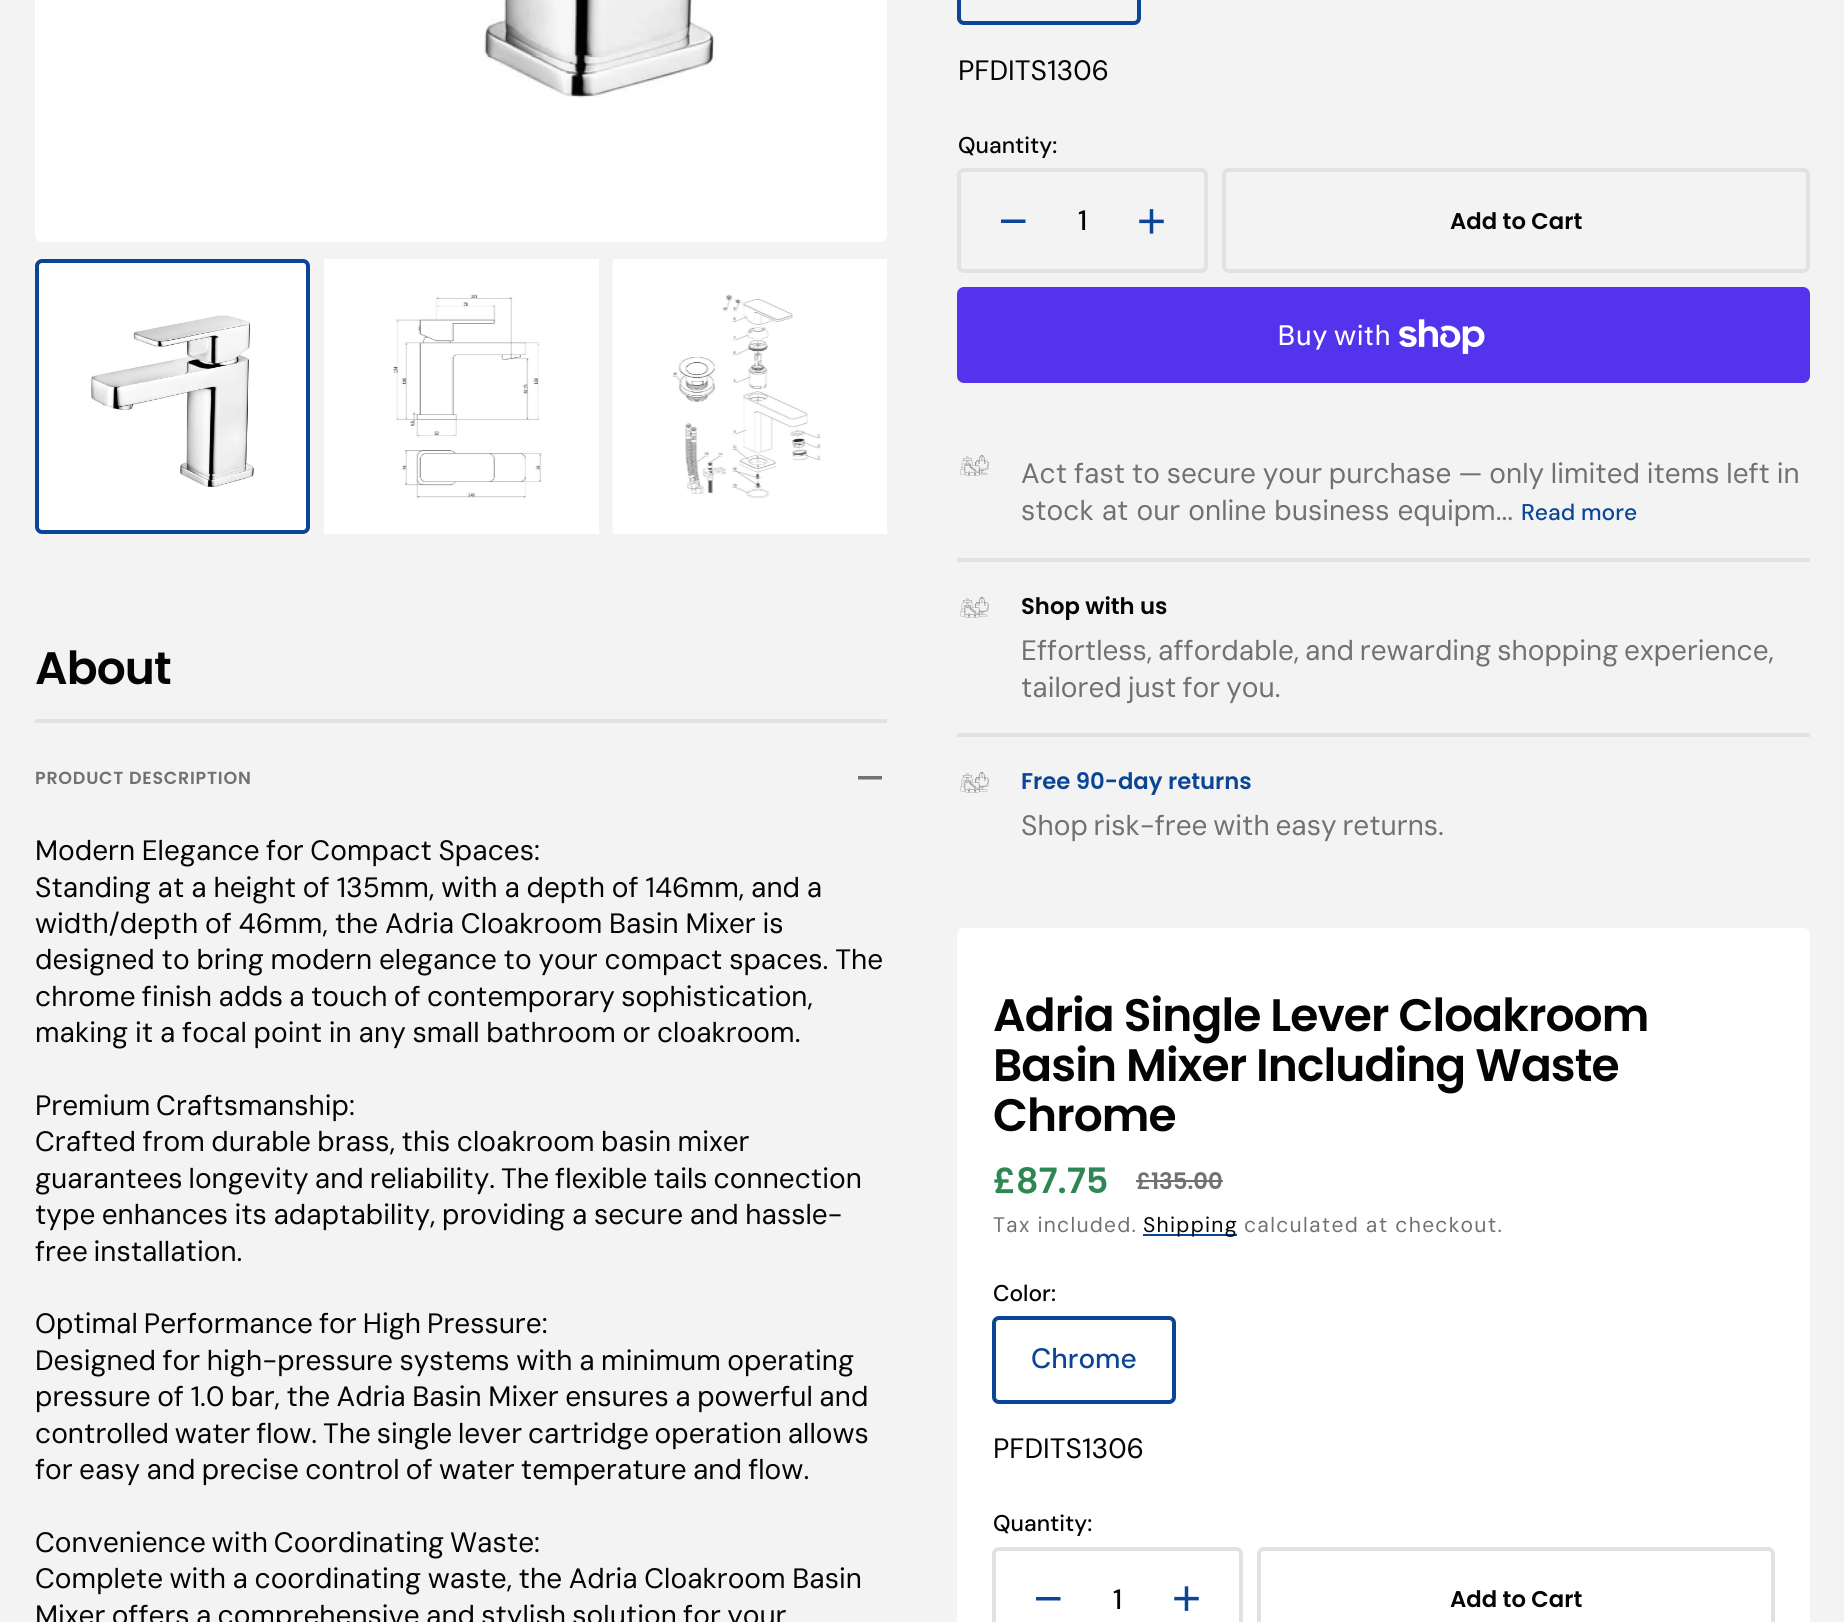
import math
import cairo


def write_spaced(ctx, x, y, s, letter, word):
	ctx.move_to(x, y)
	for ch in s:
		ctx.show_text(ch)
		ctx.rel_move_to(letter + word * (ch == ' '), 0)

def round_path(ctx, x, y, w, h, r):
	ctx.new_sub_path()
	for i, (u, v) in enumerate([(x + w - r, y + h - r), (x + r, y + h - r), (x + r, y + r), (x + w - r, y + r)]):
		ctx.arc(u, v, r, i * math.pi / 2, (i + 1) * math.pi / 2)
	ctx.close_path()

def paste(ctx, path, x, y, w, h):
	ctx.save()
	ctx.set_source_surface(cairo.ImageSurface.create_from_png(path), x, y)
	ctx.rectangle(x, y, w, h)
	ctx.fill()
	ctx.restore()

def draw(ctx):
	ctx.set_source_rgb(0.957, 0.953, 0.953)
	ctx.paint()
	ctx.set_source_rgb(1, 1, 1)
	round_path(ctx, 35, -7, 852, 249, 7)
	ctx.fill()
	paste(ctx, 'media/1.png', 484, 0, 232, 98)
	ctx.rectangle(35, 259, 275, 275)
	ctx.fill()
	paste(ctx, 'media/2.png', 91, 315, 163, 172)
	round_path(ctx, 37, 261, 271, 271, 5)
	ctx.set_source_rgb(0.043, 0.271, 0.584)
	ctx.set_line_width(4)
	ctx.stroke()
	ctx.set_source_rgb(1, 1, 1)
	ctx.rectangle(324, 259, 275, 275)
	ctx.fill()
	paste(ctx, 'media/3.png', 393, 294, 149, 205)
	ctx.rectangle(613, 259, 274, 275)
	ctx.fill()
	paste(ctx, 'media/4.png', 612, 265, 209, 263)
	ctx.select_font_face('Poppins SemiBold')
	ctx.set_font_size(45.5)
	ctx.set_source_rgb(0.016, 0.016, 0.016)
	write_spaced(ctx, 35, 684, 'About', -0.9, 0)
	ctx.set_source_rgb(0.89, 0.882, 0.882)
	ctx.rectangle(35, 719, 852, 4)
	ctx.fill()
	ctx.set_font_size(17.5)
	ctx.set_source_rgb(0.443, 0.443, 0.443)
	write_spaced(ctx, 35, 784, 'PRODUCT DESCRIPTION', 0.75, 0)
	ctx.save()
	ctx.rectangle(858, 775, 24, 5)
	ctx.clip()
	ctx.new_path()
	ctx.move_to(868, 776)
	ctx.line_to(882, 776)
	ctx.line_to(882, 779.5)
	ctx.line_to(857.5, 779.5)
	ctx.line_to(857.5, 776)
	ctx.close_path()
	ctx.fill()
	ctx.restore()
	ctx.select_font_face('DM Sans')
	ctx.set_font_size(28)
	ctx.set_source_rgb(0.016, 0.016, 0.016)
	write_spaced(ctx, 35, 860, 'Modern Elegance for Compact Spaces:', 0, -1)
	for x, y, s in [
		(35, 897, 'Standing at a height of 135mm, with a depth of 146mm, and a'),
		(35, 933, 'width/depth of 46mm, the Adria Cloakroom Basin Mixer is'),
		(35, 969, 'designed to bring modern elegance to your compact spaces. The'),
	]:
		write_spaced(ctx, x, y, s, 0, -0.75)
	write_spaced(ctx, 35, 1006, 'chrome finish adds a touch of contemporary sophistication,', 0, -1.25)
	write_spaced(ctx, 35, 1042, 'making it a focal point in any small bathroom or cloakroom.', 0, -0.75)
	write_spaced(ctx, 35, 1115, 'Premium Craftsmanship:', 0, -1.75)
	write_spaced(ctx, 35, 1151, 'Crafted from durable brass, this cloakroom basin mixer', 0, -1)
	write_spaced(ctx, 35, 1188, 'guarantees longevity and reliability. The flexible tails connection', 0, -1.5)
	write_spaced(ctx, 35, 1224, 'type enhances its adaptability, providing a secure and hassle-', 0, -1)
	write_spaced(ctx, 35, 1261, 'free installation.', 0, -1.75)
	write_spaced(ctx, 35, 1333, 'Optimal Performance for High Pressure:', 0, -1.5)
	write_spaced(ctx, 35, 1370, 'Designed for high-pressure systems with a minimum operating', 0, -1)
	write_spaced(ctx, 35, 1406, 'pressure of 1.0 bar, the Adria Basin Mixer ensures a powerful and', 0, -1)
	write_spaced(ctx, 35, 1443, 'controlled water flow. The single lever cartridge operation allows', 0, -1.75)
	write_spaced(ctx, 35, 1479, 'for easy and precise control of water temperature and flow.', 0, -1.25)
	write_spaced(ctx, 35, 1552, 'Convenience with Coordinating Waste:', 0, -1.75)
	write_spaced(ctx, 35, 1588, 'Complete with a coordinating waste, the Adria Cloakroom Basin', 0, -1)
	write_spaced(ctx, 35, 1625, 'Mixer offers a comprehensive and stylish solution for your', 0, -1.25)
	round_path(ctx, 959, -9, 180, 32, 5)
	ctx.set_source_rgb(0.043, 0.271, 0.584)
	ctx.stroke()
	ctx.set_source_rgb(0.016, 0.016, 0.016)
	ctx.move_to(958, 80)
	ctx.show_text('PFDITS1306')
	ctx.select_font_face('DM Sans Medium')
	ctx.set_font_size(22.75)
	ctx.move_to(958, 153)
	ctx.show_text('Quantity:')
	round_path(ctx, 959, 170, 247, 101, 5)
	ctx.set_source_rgb(0.89, 0.882, 0.882)
	ctx.stroke()
	ctx.set_source_rgb(0.043, 0.271, 0.584)
	ctx.new_path()
	ctx.move_to(1011.5, 219.5)
	ctx.line_to(1025.5, 219.5)
	ctx.line_to(1025.5, 223)
	ctx.line_to(1001, 223)
	ctx.line_to(1001, 219.5)
	ctx.close_path()
	ctx.fill()
	ctx.select_font_face('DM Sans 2 Medium')
	ctx.set_font_size(28)
	ctx.set_source_rgb(0.016, 0.016, 0.016)
	ctx.move_to(1078, 230)
	ctx.show_text('1')
	paste(ctx, 'media/5.png', 1139, 209, 25, 25)
	round_path(ctx, 1224, 170, 584, 101, 5)
	ctx.set_source_rgb(0.89, 0.882, 0.882)
	ctx.stroke()
	ctx.select_font_face('Poppins SemiBold')
	ctx.set_font_size(22.75)
	ctx.set_source_rgb(0.016, 0.016, 0.016)
	ctx.move_to(1450, 229)
	ctx.show_text('Add to Cart')
	ctx.set_source_rgb(0.329, 0.2, 0.922)
	round_path(ctx, 957, 287, 853, 96, 7)
	ctx.fill()
	ctx.select_font_face('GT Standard')
	ctx.set_font_size(28)
	ctx.set_source_rgb(1, 1, 1)
	ctx.move_to(1277, 345)
	ctx.show_text('Buy with')
	paste(ctx, 'media/6.png', 1399, 319, 86, 35)
	paste(ctx, 'media/7.png', 960, 455, 29, 21)
	ctx.select_font_face('DM Sans')
	ctx.set_source_rgb(0.443, 0.443, 0.443)
	write_spaced(ctx, 1021, 483, 'Act fast to secure your purchase — only limited items left in', 0, -0.75)
	write_spaced(ctx, 1021, 520, 'stock at our online business equipm...', 0, 0.5)
	ctx.select_font_face('DM Sans Medium')
	ctx.set_font_size(22.75)
	ctx.set_source_rgb(0.043, 0.271, 0.584)
	ctx.move_to(1521, 520)
	ctx.show_text('Read more')
	ctx.set_source_rgb(0.89, 0.882, 0.882)
	ctx.rectangle(957, 558, 853, 4)
	ctx.fill()
	paste(ctx, 'media/8.png', 960, 597, 29, 21)
	ctx.select_font_face('Poppins SemiBold')
	ctx.set_source_rgb(0.016, 0.016, 0.016)
	ctx.move_to(1021, 614)
	ctx.show_text('Shop with us')
	ctx.select_font_face('DM Sans')
	ctx.set_font_size(28)
	ctx.set_source_rgb(0.443, 0.443, 0.443)
	write_spaced(ctx, 1021, 660, 'Effortless, affordable, and rewarding shopping experience,', 0, -1.75)
	write_spaced(ctx, 1021, 697, 'tailored just for you.', 0, -1.5)
	ctx.set_source_rgb(0.89, 0.882, 0.882)
	ctx.rectangle(957, 733, 853, 4)
	ctx.fill()
	paste(ctx, 'media/8.png', 960, 772, 29, 21)
	ctx.select_font_face('Poppins SemiBold')
	ctx.set_font_size(22.75)
	ctx.set_source_rgb(0.043, 0.271, 0.584)
	ctx.move_to(1021, 789)
	ctx.show_text('Free 90-day returns')
	ctx.select_font_face('DM Sans')
	ctx.set_font_size(28)
	ctx.set_source_rgb(0.443, 0.443, 0.443)
	write_spaced(ctx, 1021, 835, 'Shop risk-free with easy returns.', 0, -1.75)
	ctx.set_source_rgb(1, 1, 1)
	round_path(ctx, 957, 928, 853, 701, 7)
	ctx.fill()
	ctx.select_font_face('Poppins SemiBold')
	ctx.set_font_size(45.5)
	ctx.set_source_rgb(0.016, 0.016, 0.016)
	for x, y, s in [
		(993, 1031, 'Adria Single Lever Cloakroom'),
		(993, 1081, 'Basin Mixer Including Waste'),
		(993, 1131, 'Chrome'),
	]:
		write_spaced(ctx, x, y, s, -0.9, 0)
	ctx.set_font_size(35)
	ctx.set_source_rgb(0.176, 0.525, 0.325)
	ctx.move_to(993, 1193)
	ctx.show_text('£87.75')
	ctx.set_font_size(22.75)
	ctx.set_source_rgb(0.443, 0.443, 0.443)
	ctx.move_to(1136, 1189)
	ctx.show_text('£135.00')
	ctx.rectangle(1136, 1180, 87, 2)
	ctx.fill()
	ctx.select_font_face('DM Sans')
	ctx.set_font_size(21)
	write_spaced(ctx, 993, 1232, 'Tax included.', 1.25, 0)
	ctx.set_source_rgb(0.043, 0.271, 0.584)
	ctx.rectangle(1143, 1234, 94, 2)
	ctx.fill()
	ctx.set_source_rgb(0.016, 0.016, 0.016)
	write_spaced(ctx, 1143, 1232, 'Shipping', 1.25, 0)
	ctx.set_source_rgb(0.443, 0.443, 0.443)
	write_spaced(ctx, 1244, 1232, 'calculated at checkout.', 1.25, 0)
	ctx.select_font_face('DM Sans Medium')
	ctx.set_font_size(22.75)
	ctx.set_source_rgb(0.016, 0.016, 0.016)
	ctx.move_to(993, 1301)
	ctx.show_text('Color:')
	round_path(ctx, 994, 1318, 180, 84, 5)
	ctx.set_source_rgb(0.043, 0.271, 0.584)
	ctx.stroke()
	ctx.select_font_face('DM Sans 2 Medium')
	ctx.set_font_size(28)
	ctx.move_to(1031, 1368)
	ctx.show_text('Chrome')
	ctx.select_font_face('DM Sans')
	ctx.set_source_rgb(0.016, 0.016, 0.016)
	ctx.move_to(993, 1458)
	ctx.show_text('PFDITS1306')
	ctx.select_font_face('DM Sans Medium')
	ctx.set_font_size(22.75)
	ctx.move_to(993, 1531)
	ctx.show_text('Quantity:')
	round_path(ctx, 994, 1549, 247, 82, 5)
	ctx.set_source_rgb(0.89, 0.882, 0.882)
	ctx.stroke()
	ctx.set_source_rgb(0.043, 0.271, 0.584)
	ctx.new_path()
	ctx.move_to(1046.5, 1597)
	ctx.line_to(1060.5, 1597)
	ctx.line_to(1060.5, 1600.5)
	ctx.line_to(1036, 1600.5)
	ctx.line_to(1036, 1597)
	ctx.close_path()
	ctx.fill()
	ctx.select_font_face('DM Sans 2 Medium')
	ctx.set_font_size(28)
	ctx.set_source_rgb(0.016, 0.016, 0.016)
	ctx.move_to(1113, 1609)
	ctx.show_text('1')
	paste(ctx, 'media/9.png', 1174, 1586, 25, 25)
	round_path(ctx, 1259, 1549, 514, 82, 5)
	ctx.set_source_rgb(0.89, 0.882, 0.882)
	ctx.stroke()
	ctx.select_font_face('Poppins SemiBold')
	ctx.set_font_size(22.75)
	ctx.set_source_rgb(0.016, 0.016, 0.016)
	ctx.move_to(1450, 1607)
	ctx.show_text('Add to Cart')


surface = cairo.ImageSurface(cairo.FORMAT_RGB24, 1844, 1622)
ctx = cairo.Context(surface)
options = cairo.FontOptions()
options.set_hint_metrics(cairo.HINT_METRICS_OFF)
options.set_hint_style(cairo.HINT_STYLE_NONE)
ctx.set_font_options(options)
ctx.set_miter_limit(4)
draw(ctx)
surface.write_to_png('image.png')
